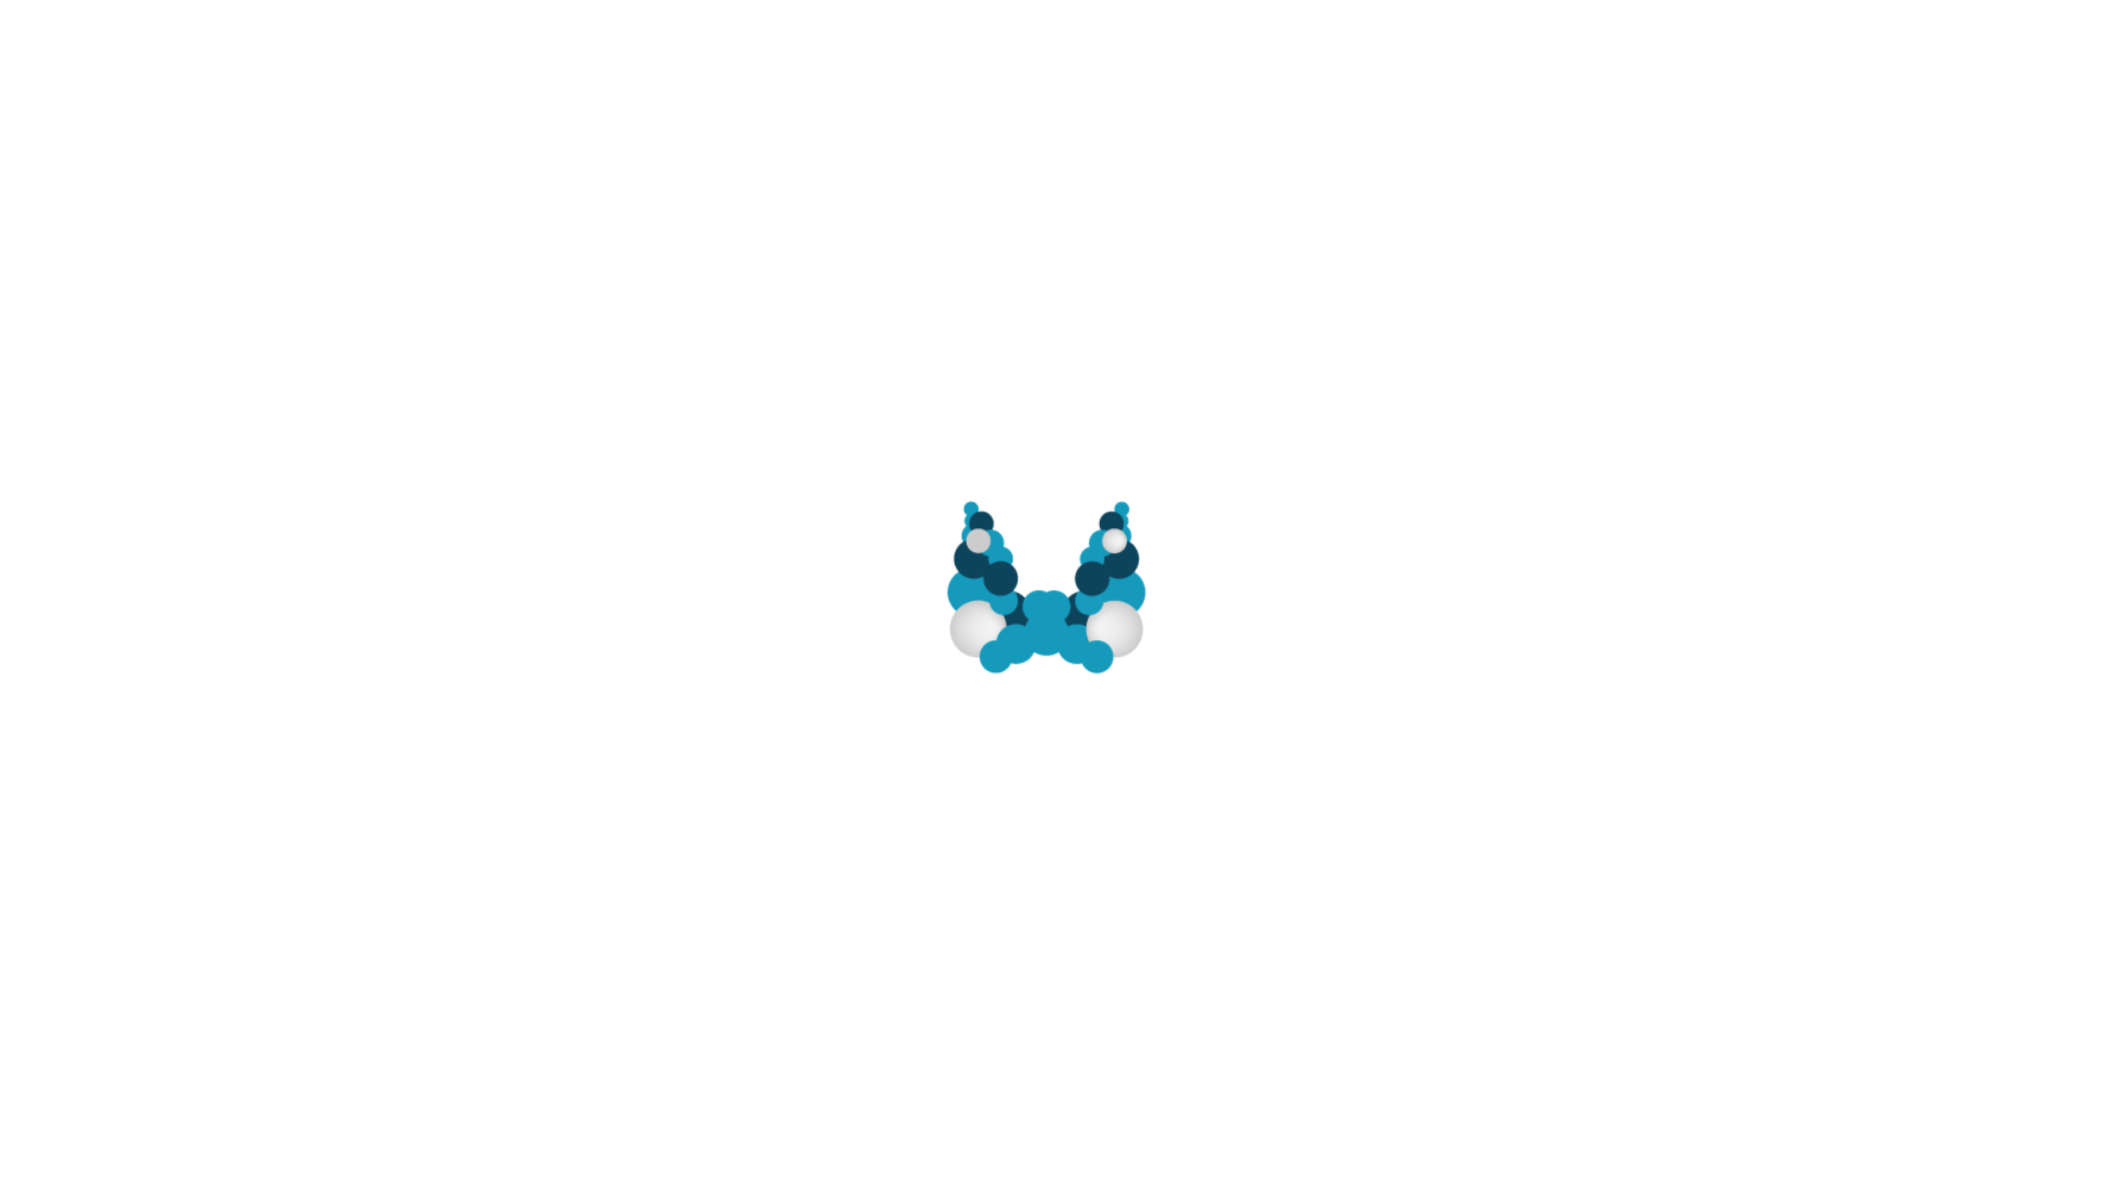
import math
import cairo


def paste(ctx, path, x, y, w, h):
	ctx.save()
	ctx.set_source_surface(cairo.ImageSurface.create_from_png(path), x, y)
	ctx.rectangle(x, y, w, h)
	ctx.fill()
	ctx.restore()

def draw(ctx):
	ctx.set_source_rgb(1, 1, 1)
	ctx.paint()
	paste(ctx, 'media/1.png', 946, 500, 201, 175)


surface = cairo.ImageSurface(cairo.FORMAT_RGB24, 2110, 1185)
ctx = cairo.Context(surface)
options = cairo.FontOptions()
options.set_hint_metrics(cairo.HINT_METRICS_OFF)
options.set_hint_style(cairo.HINT_STYLE_NONE)
ctx.set_font_options(options)
ctx.set_miter_limit(4)
draw(ctx)
surface.write_to_png('image.png')
